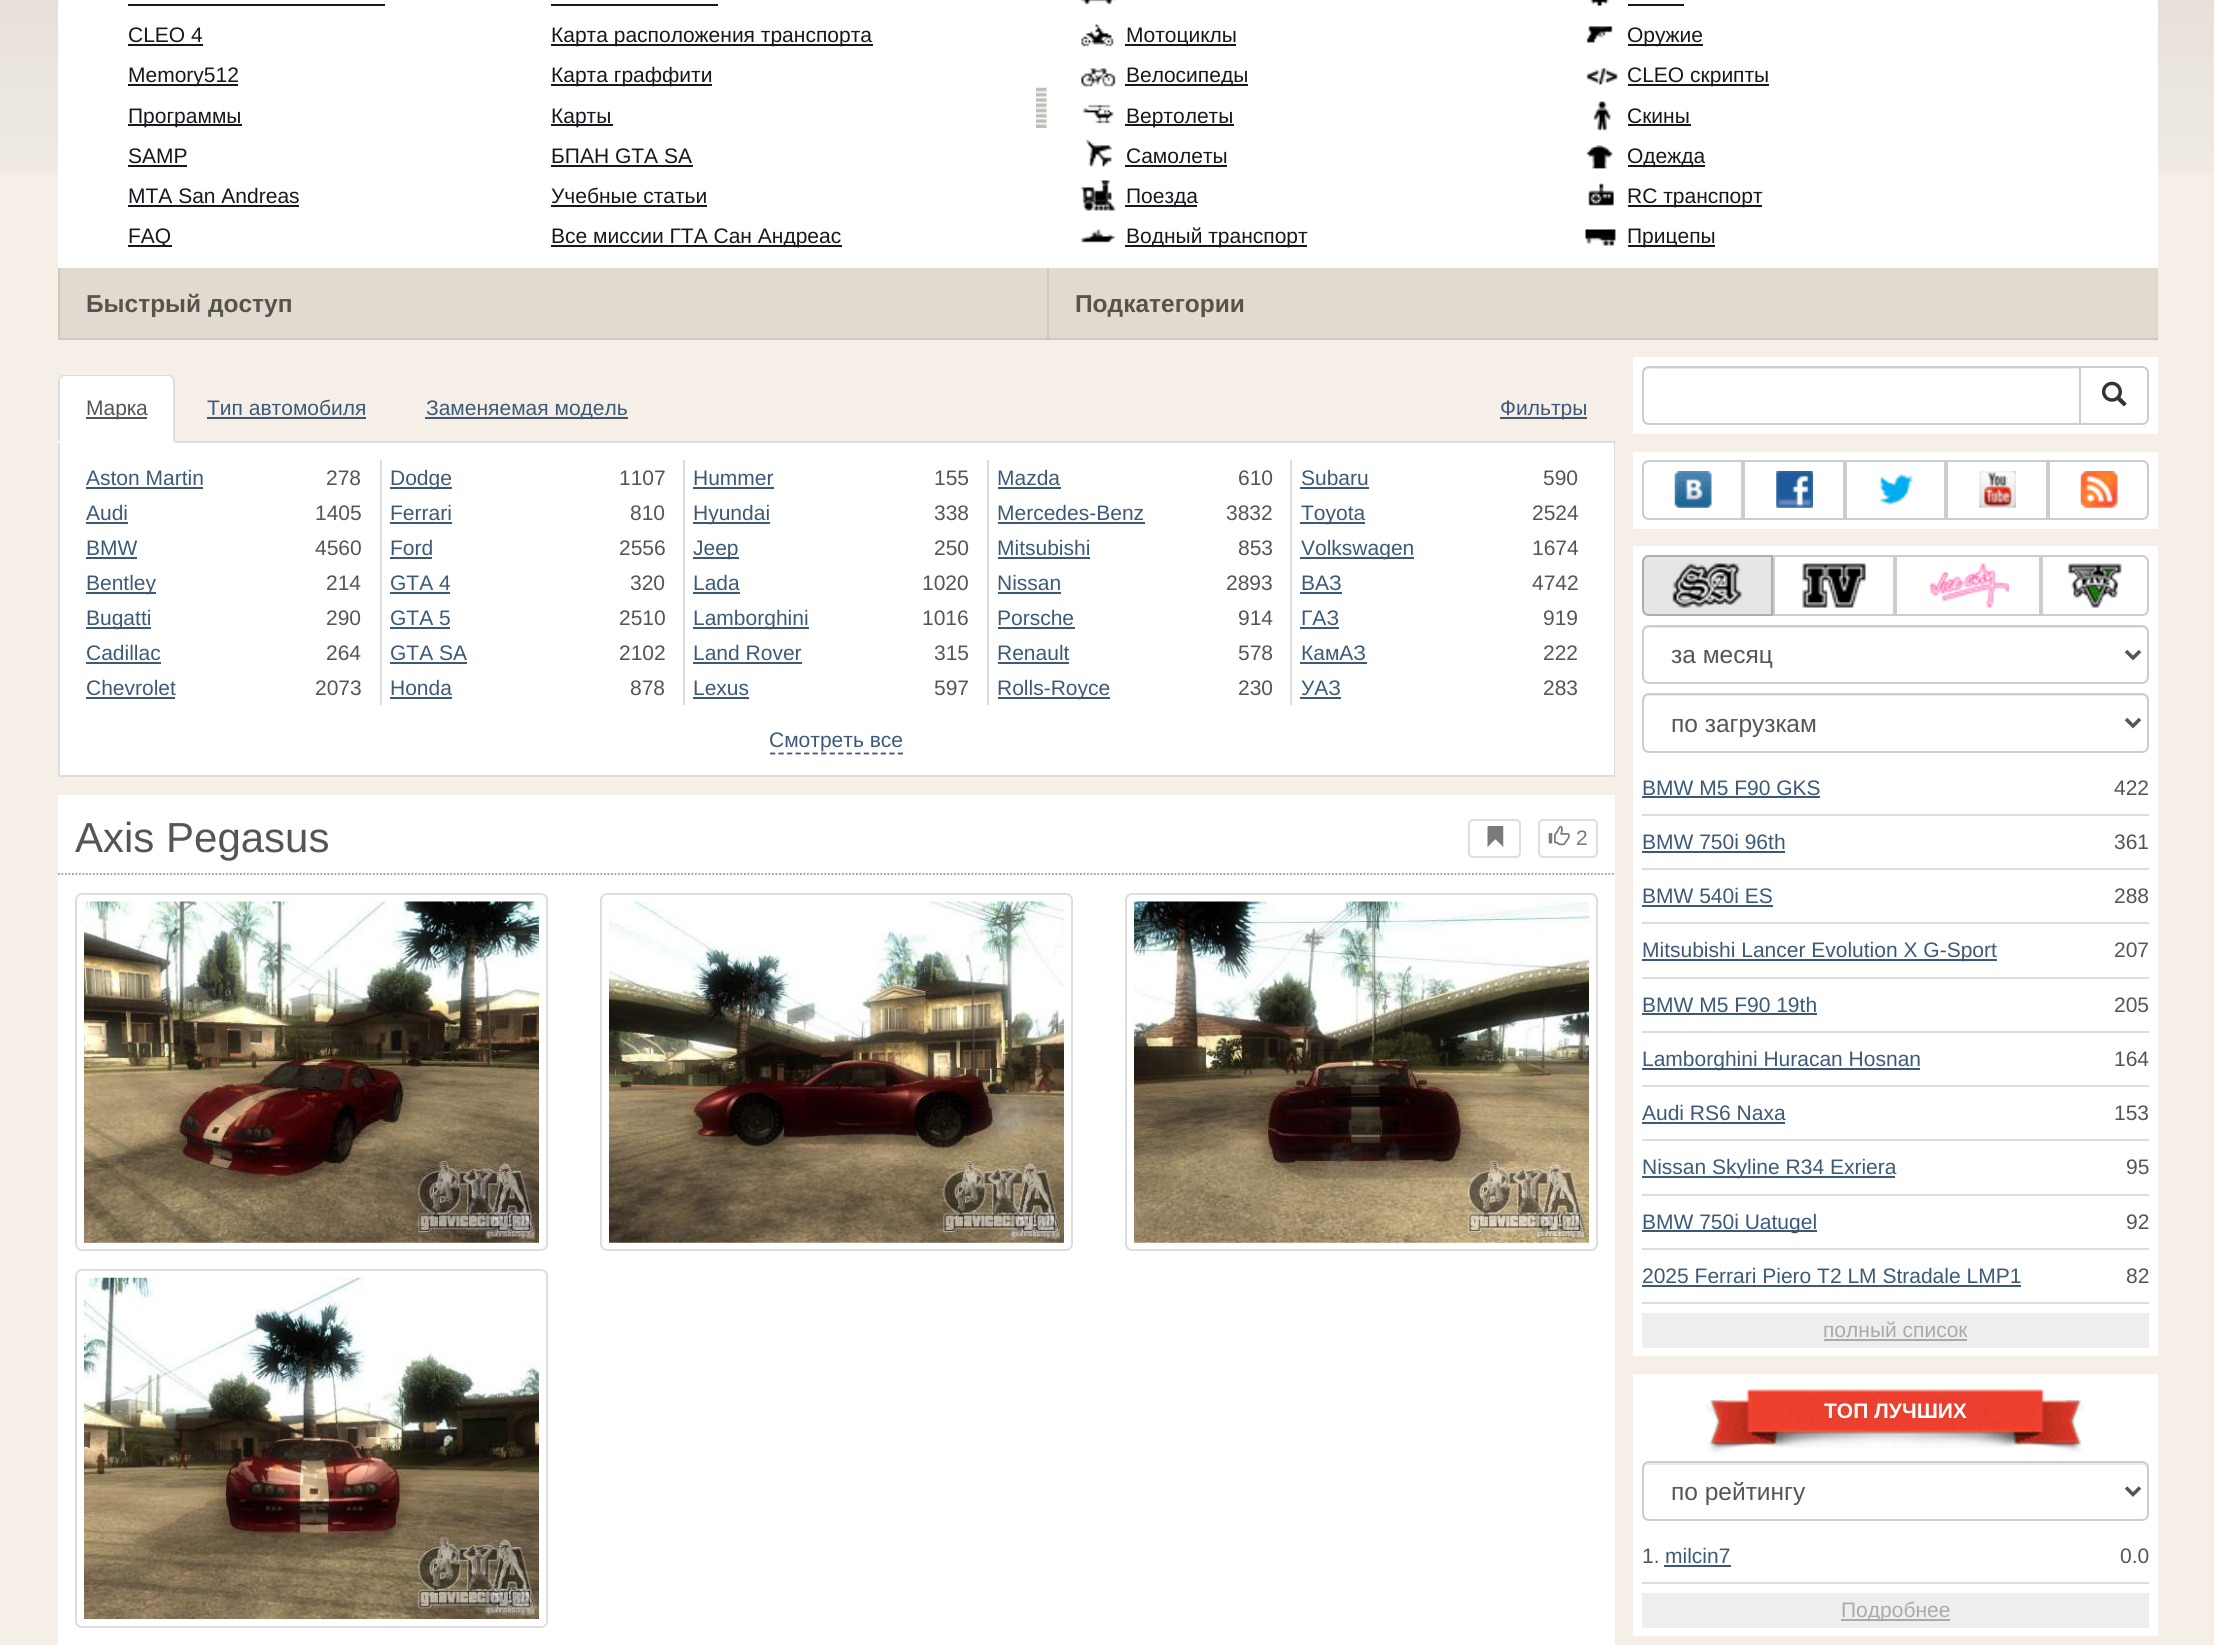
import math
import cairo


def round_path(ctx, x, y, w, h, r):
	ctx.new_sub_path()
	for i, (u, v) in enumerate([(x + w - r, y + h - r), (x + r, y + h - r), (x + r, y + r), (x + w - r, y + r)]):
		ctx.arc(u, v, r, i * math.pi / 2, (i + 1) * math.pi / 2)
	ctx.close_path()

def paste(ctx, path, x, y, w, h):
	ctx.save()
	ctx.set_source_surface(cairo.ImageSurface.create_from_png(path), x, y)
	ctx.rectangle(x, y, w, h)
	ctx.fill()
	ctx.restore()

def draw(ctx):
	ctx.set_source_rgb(0.961, 0.937, 0.91)
	ctx.paint()
	paste(ctx, 'media/1.png', 0, 0, 2214, 173)
	ctx.set_source_rgb(1, 1, 1)
	ctx.rectangle(58, 0, 2100, 268)
	ctx.fill()
	ctx.set_source_rgb(0.812, 0.784, 0.737)
	ctx.rectangle(58, 338, 2100, 2)
	ctx.fill()
	paste(ctx, 'media/2.png', 1036, 87, 11, 41)
	ctx.set_source_rgb(0.094, 0.09, 0.114)
	ctx.rectangle(128, 4, 257, 2)
	ctx.fill()
	ctx.select_font_face('Liberation Sans')
	ctx.set_font_size(21)
	ctx.move_to(128, 42)
	ctx.show_text('CLEO 4')
	ctx.rectangle(128, 44, 75, 2)
	ctx.fill()
	ctx.rectangle(128, 84, 110, 2)
	ctx.fill()
	ctx.move_to(128, 82)
	ctx.show_text('Memory512')
	ctx.rectangle(128, 124, 114, 2)
	ctx.fill()
	ctx.move_to(128, 123)
	ctx.show_text('Программы')
	ctx.move_to(128, 163)
	ctx.show_text('SAMP')
	ctx.rectangle(128, 165, 59, 2)
	ctx.fill()
	ctx.move_to(128, 203)
	ctx.show_text('MTA San Andreas')
	ctx.rectangle(128, 205, 171, 2)
	ctx.fill()
	ctx.rectangle(128, 245, 44, 2)
	ctx.fill()
	ctx.move_to(128, 243)
	ctx.show_text('FAQ')
	ctx.rectangle(551, 4, 167, 2)
	ctx.fill()
	ctx.rectangle(551, 44, 322, 2)
	ctx.fill()
	ctx.move_to(551, 42)
	ctx.show_text('Карта расположения транспорта')
	ctx.rectangle(551, 84, 161, 2)
	ctx.fill()
	ctx.move_to(551, 82)
	ctx.show_text('Карта граффити')
	ctx.rectangle(551, 124, 62, 2)
	ctx.fill()
	ctx.move_to(551, 123)
	ctx.show_text('Карты')
	ctx.move_to(551, 163)
	ctx.show_text('БПАН GTA SA')
	ctx.rectangle(551, 165, 142, 2)
	ctx.fill()
	ctx.move_to(551, 203)
	ctx.show_text('Учебные статьи')
	ctx.rectangle(551, 205, 156, 2)
	ctx.fill()
	ctx.rectangle(551, 245, 291, 2)
	ctx.fill()
	ctx.move_to(551, 243)
	ctx.show_text('Все миссии ГТА Сан Андреас')
	ctx.set_source_rgb(0.878, 0.855, 0.82)
	ctx.rectangle(60, 268, 987, 70)
	ctx.fill()
	ctx.set_source_rgb(0.812, 0.784, 0.737)
	ctx.rectangle(58, 268, 2, 70)
	ctx.fill()
	ctx.select_font_face('Liberation Sans', cairo.FONT_SLANT_NORMAL, cairo.FONT_WEIGHT_BOLD)
	ctx.set_font_size(24.5)
	ctx.set_source_rgb(0.341, 0.325, 0.294)
	ctx.move_to(86, 312)
	ctx.show_text('Быстрый доступ')
	paste(ctx, 'media/3.png', 1081, 0, 34, 5)
	paste(ctx, 'media/4.png', 1081, 24, 33, 23)
	ctx.set_source_rgb(0.094, 0.09, 0.114)
	ctx.rectangle(1125, 44, 111, 2)
	ctx.fill()
	ctx.select_font_face('Liberation Sans')
	ctx.set_font_size(21)
	ctx.move_to(1126, 42)
	ctx.show_text('Мотоциклы')
	paste(ctx, 'media/5.png', 1081, 68, 35, 19)
	ctx.rectangle(1125, 84, 123, 2)
	ctx.fill()
	ctx.move_to(1126, 82)
	ctx.show_text('Велосипеды')
	paste(ctx, 'media/6.png', 1082, 104, 32, 20)
	ctx.rectangle(1125, 124, 109, 2)
	ctx.fill()
	ctx.move_to(1126, 123)
	ctx.show_text('Вертолеты')
	paste(ctx, 'media/7.png', 1086, 140, 26, 27)
	ctx.move_to(1126, 163)
	ctx.show_text('Самолеты')
	ctx.rectangle(1125, 165, 102, 2)
	ctx.fill()
	paste(ctx, 'media/8.png', 1081, 180, 35, 31)
	ctx.rectangle(1125, 205, 72, 2)
	ctx.fill()
	ctx.move_to(1126, 203)
	ctx.show_text('Поезда')
	paste(ctx, 'media/9.png', 1081, 229, 35, 14)
	ctx.rectangle(1125, 245, 182, 2)
	ctx.fill()
	ctx.move_to(1126, 243)
	ctx.show_text('Водный транспорт')
	paste(ctx, 'media/10.png', 1590, 0, 19, 6)
	ctx.rectangle(1628, 4, 56, 2)
	ctx.fill()
	paste(ctx, 'media/11.png', 1586, 26, 27, 17)
	ctx.rectangle(1628, 44, 75, 2)
	ctx.fill()
	ctx.move_to(1627, 42)
	ctx.show_text('Оружие')
	paste(ctx, 'media/12.png', 1586, 68, 32, 17)
	ctx.rectangle(1628, 84, 141, 2)
	ctx.fill()
	ctx.move_to(1627, 82)
	ctx.show_text('CLEO скрипты')
	paste(ctx, 'media/13.png', 1593, 101, 18, 30)
	ctx.move_to(1627, 123)
	ctx.show_text('Скины')
	ctx.rectangle(1628, 124, 63, 2)
	ctx.fill()
	paste(ctx, 'media/14.png', 1586, 145, 27, 24)
	ctx.rectangle(1628, 165, 77, 2)
	ctx.fill()
	ctx.move_to(1627, 163)
	ctx.show_text('Одежда')
	paste(ctx, 'media/15.png', 1588, 183, 26, 23)
	ctx.rectangle(1628, 205, 134, 2)
	ctx.fill()
	ctx.move_to(1627, 203)
	ctx.show_text('RC транспорт')
	paste(ctx, 'media/16.png', 1585, 229, 31, 17)
	ctx.rectangle(1628, 245, 87, 2)
	ctx.fill()
	ctx.move_to(1627, 243)
	ctx.show_text('Прицепы')
	ctx.set_source_rgb(0.878, 0.855, 0.82)
	ctx.rectangle(1049, 268, 1109, 70)
	ctx.fill()
	ctx.set_source_rgb(0.812, 0.784, 0.737)
	ctx.rectangle(1047, 268, 2, 70)
	ctx.fill()
	ctx.select_font_face('Liberation Sans', cairo.FONT_SLANT_NORMAL, cairo.FONT_WEIGHT_BOLD)
	ctx.set_font_size(24.5)
	ctx.set_source_rgb(0.341, 0.325, 0.294)
	ctx.move_to(1075, 312)
	ctx.show_text('Подкатегории')
	ctx.set_source_rgb(0.867, 0.867, 0.867)
	ctx.rectangle(175, 441, 1440, 2)
	ctx.fill()
	ctx.set_source_rgb(1, 1, 1)
	ctx.new_path()
	ctx.move_to(65, 375)
	ctx.line_to(168, 375)
	ctx.curve_to(172, 375, 175, 378, 175, 382)
	ctx.line_to(175, 443)
	ctx.line_to(58, 443)
	ctx.line_to(58, 382)
	ctx.curve_to(58, 378, 61, 375, 65, 375)
	ctx.close_path()
	ctx.fill()
	ctx.save()
	ctx.rectangle(58, 375, 1557, 402)
	ctx.clip()
	ctx.set_source_rgb(0.867, 0.867, 0.867)
	ctx.new_path()
	ctx.move_to(65, 376)
	ctx.curve_to(63, 376, 62, 377, 61, 378)
	ctx.line_to(60, 377)
	ctx.line_to(63, 374)
	ctx.line_to(170, 374)
	ctx.line_to(173, 376)
	ctx.line_to(172, 378)
	ctx.curve_to(171, 377, 170, 376, 168, 376)
	ctx.close_path()
	ctx.fill()
	ctx.restore()
	ctx.set_source_rgb(0.867, 0.867, 0.867)
	ctx.new_path()
	ctx.move_to(175, 443)
	ctx.line_to(175, 382)
	ctx.curve_to(175, 380, 174, 378, 173, 376)
	ctx.line_to(172, 378)
	ctx.curve_to(172, 379, 173, 380, 173, 382)
	ctx.line_to(173, 441)
	ctx.close_path()
	ctx.fill()
	ctx.set_source_rgb(1, 1, 1)
	ctx.new_path()
	ctx.move_to(175, 443)
	ctx.line_to(58, 443)
	ctx.line_to(60, 440)
	ctx.line_to(60, 441)
	ctx.line_to(173, 441)
	ctx.close_path()
	ctx.fill()
	ctx.set_source_rgb(0.867, 0.867, 0.867)
	ctx.new_path()
	ctx.move_to(58, 442)
	ctx.line_to(58, 382)
	ctx.curve_to(58, 380, 59, 378, 60, 377)
	ctx.line_to(61, 378)
	ctx.curve_to(60, 379, 60, 381, 60, 382)
	ctx.line_to(60, 440)
	ctx.close_path()
	ctx.fill()
	ctx.set_source_rgb(0.333, 0.333, 0.333)
	ctx.rectangle(86, 417, 61, 2)
	ctx.fill()
	ctx.select_font_face('Liberation Sans')
	ctx.set_font_size(21)
	ctx.move_to(86, 415)
	ctx.show_text('Марка')
	ctx.set_source_rgb(0.235, 0.353, 0.471)
	ctx.move_to(207, 415)
	ctx.show_text('Тип автомобиля')
	ctx.rectangle(207, 417, 159, 2)
	ctx.fill()
	ctx.rectangle(425, 417, 203, 2)
	ctx.fill()
	ctx.move_to(426, 415)
	ctx.show_text('Заменяемая модель')
	ctx.rectangle(1500, 417, 87, 2)
	ctx.fill()
	ctx.move_to(1500, 415)
	ctx.show_text('Фильтры')
	ctx.set_source_rgb(1, 1, 1)
	ctx.rectangle(60, 443, 1554, 332)
	ctx.fill()
	ctx.set_source_rgb(0.867, 0.867, 0.867)
	ctx.rectangle(1614, 443, 1, 334)
	ctx.rectangle(58, 775, 1557, 2)
	ctx.rectangle(58, 443, 2, 334)
	ctx.rectangle(380, 460, 2, 245)
	ctx.fill()
	ctx.set_source_rgb(0.235, 0.353, 0.471)
	ctx.move_to(86, 485)
	ctx.show_text('Aston Martin')
	ctx.rectangle(86, 487, 117, 2)
	ctx.fill()
	ctx.set_source_rgb(0.333, 0.333, 0.333)
	ctx.move_to(326, 485)
	ctx.show_text('278')
	ctx.set_source_rgb(0.235, 0.353, 0.471)
	ctx.move_to(86, 520)
	ctx.show_text('Audi')
	ctx.rectangle(86, 522, 42, 2)
	ctx.fill()
	ctx.set_source_rgb(0.333, 0.333, 0.333)
	ctx.move_to(315, 520)
	ctx.show_text('1405')
	ctx.set_source_rgb(0.235, 0.353, 0.471)
	ctx.move_to(86, 555)
	ctx.show_text('BMW')
	ctx.rectangle(86, 557, 51, 2)
	ctx.fill()
	ctx.set_source_rgb(0.333, 0.333, 0.333)
	ctx.move_to(315, 555)
	ctx.show_text('4560')
	ctx.set_source_rgb(0.235, 0.353, 0.471)
	ctx.rectangle(86, 592, 70, 2)
	ctx.fill()
	ctx.move_to(86, 590)
	ctx.show_text('Bentley')
	ctx.set_source_rgb(0.333, 0.333, 0.333)
	ctx.move_to(326, 590)
	ctx.show_text('214')
	ctx.set_source_rgb(0.235, 0.353, 0.471)
	ctx.rectangle(86, 627, 65, 2)
	ctx.fill()
	ctx.move_to(86, 625)
	ctx.show_text('Bugatti')
	ctx.set_source_rgb(0.333, 0.333, 0.333)
	ctx.move_to(326, 625)
	ctx.show_text('290')
	ctx.set_source_rgb(0.235, 0.353, 0.471)
	ctx.move_to(86, 660)
	ctx.show_text('Cadillac')
	ctx.rectangle(86, 662, 75, 2)
	ctx.fill()
	ctx.set_source_rgb(0.333, 0.333, 0.333)
	ctx.move_to(326, 660)
	ctx.show_text('264')
	ctx.set_source_rgb(0.235, 0.353, 0.471)
	ctx.move_to(86, 695)
	ctx.show_text('Chevrolet')
	ctx.rectangle(86, 697, 89, 2)
	ctx.fill()
	ctx.set_source_rgb(0.333, 0.333, 0.333)
	ctx.move_to(315, 695)
	ctx.show_text('2073')
	ctx.set_source_rgb(0.867, 0.867, 0.867)
	ctx.rectangle(683, 460, 2, 245)
	ctx.fill()
	ctx.set_source_rgb(0.235, 0.353, 0.471)
	ctx.rectangle(390, 487, 62, 2)
	ctx.fill()
	ctx.move_to(390, 485)
	ctx.show_text('Dodge')
	ctx.set_source_rgb(0.333, 0.333, 0.333)
	ctx.move_to(619, 485)
	ctx.show_text('1107')
	ctx.set_source_rgb(0.235, 0.353, 0.471)
	ctx.move_to(390, 520)
	ctx.show_text('Ferrari')
	ctx.rectangle(390, 522, 62, 2)
	ctx.fill()
	ctx.set_source_rgb(0.333, 0.333, 0.333)
	ctx.move_to(630, 520)
	ctx.show_text('810')
	ctx.set_source_rgb(0.235, 0.353, 0.471)
	ctx.move_to(390, 555)
	ctx.show_text('Ford')
	ctx.rectangle(390, 557, 42, 2)
	ctx.fill()
	ctx.set_source_rgb(0.333, 0.333, 0.333)
	ctx.move_to(619, 555)
	ctx.show_text('2556')
	ctx.set_source_rgb(0.235, 0.353, 0.471)
	ctx.move_to(390, 590)
	ctx.show_text('GTA 4')
	ctx.rectangle(390, 592, 60, 2)
	ctx.fill()
	ctx.set_source_rgb(0.333, 0.333, 0.333)
	ctx.move_to(630, 590)
	ctx.show_text('320')
	ctx.set_source_rgb(0.235, 0.353, 0.471)
	ctx.move_to(390, 625)
	ctx.show_text('GTA 5')
	ctx.rectangle(390, 627, 60, 2)
	ctx.fill()
	ctx.set_source_rgb(0.333, 0.333, 0.333)
	ctx.move_to(619, 625)
	ctx.show_text('2510')
	ctx.set_source_rgb(0.235, 0.353, 0.471)
	ctx.move_to(390, 660)
	ctx.show_text('GTA SA')
	ctx.rectangle(390, 662, 77, 2)
	ctx.fill()
	ctx.set_source_rgb(0.333, 0.333, 0.333)
	ctx.move_to(619, 660)
	ctx.show_text('2102')
	ctx.set_source_rgb(0.235, 0.353, 0.471)
	ctx.move_to(390, 695)
	ctx.show_text('Honda')
	ctx.rectangle(390, 697, 62, 2)
	ctx.fill()
	ctx.set_source_rgb(0.333, 0.333, 0.333)
	ctx.move_to(630, 695)
	ctx.show_text('878')
	ctx.set_source_rgb(0.867, 0.867, 0.867)
	ctx.rectangle(987, 460, 2, 245)
	ctx.fill()
	ctx.set_source_rgb(0.235, 0.353, 0.471)
	ctx.move_to(693, 485)
	ctx.show_text('Hummer')
	ctx.rectangle(693, 487, 81, 2)
	ctx.fill()
	ctx.set_source_rgb(0.333, 0.333, 0.333)
	ctx.move_to(934, 485)
	ctx.show_text('155')
	ctx.set_source_rgb(0.235, 0.353, 0.471)
	ctx.rectangle(693, 522, 77, 2)
	ctx.fill()
	ctx.move_to(693, 520)
	ctx.show_text('Hyundai')
	ctx.set_source_rgb(0.333, 0.333, 0.333)
	ctx.move_to(934, 520)
	ctx.show_text('338')
	ctx.set_source_rgb(0.235, 0.353, 0.471)
	ctx.rectangle(693, 557, 46, 2)
	ctx.fill()
	ctx.move_to(693, 555)
	ctx.show_text('Jeep')
	ctx.set_source_rgb(0.333, 0.333, 0.333)
	ctx.move_to(934, 555)
	ctx.show_text('250')
	ctx.set_source_rgb(0.235, 0.353, 0.471)
	ctx.move_to(693, 590)
	ctx.show_text('Lada')
	ctx.rectangle(693, 592, 47, 2)
	ctx.fill()
	ctx.set_source_rgb(0.333, 0.333, 0.333)
	ctx.move_to(922, 590)
	ctx.show_text('1020')
	ctx.set_source_rgb(0.235, 0.353, 0.471)
	ctx.rectangle(693, 627, 116, 2)
	ctx.fill()
	ctx.move_to(693, 625)
	ctx.show_text('Lamborghini')
	ctx.set_source_rgb(0.333, 0.333, 0.333)
	ctx.move_to(922, 625)
	ctx.show_text('1016')
	ctx.set_source_rgb(0.235, 0.353, 0.471)
	ctx.move_to(693, 660)
	ctx.show_text('Land Rover')
	ctx.rectangle(693, 662, 109, 2)
	ctx.fill()
	ctx.set_source_rgb(0.333, 0.333, 0.333)
	ctx.move_to(934, 660)
	ctx.show_text('315')
	ctx.set_source_rgb(0.235, 0.353, 0.471)
	ctx.move_to(693, 695)
	ctx.show_text('Lexus')
	ctx.rectangle(693, 697, 56, 2)
	ctx.fill()
	ctx.set_source_rgb(0.333, 0.333, 0.333)
	ctx.move_to(934, 695)
	ctx.show_text('597')
	ctx.set_source_rgb(0.867, 0.867, 0.867)
	ctx.rectangle(1290, 460, 2, 245)
	ctx.fill()
	ctx.set_source_rgb(0.235, 0.353, 0.471)
	ctx.move_to(997, 485)
	ctx.show_text('Mazda')
	ctx.rectangle(998, 487, 63, 2)
	ctx.fill()
	ctx.set_source_rgb(0.333, 0.333, 0.333)
	ctx.move_to(1238, 485)
	ctx.show_text('610')
	ctx.set_source_rgb(0.235, 0.353, 0.471)
	ctx.move_to(997, 520)
	ctx.show_text('Mercedes-Benz')
	ctx.rectangle(998, 522, 147, 2)
	ctx.fill()
	ctx.set_source_rgb(0.333, 0.333, 0.333)
	ctx.move_to(1226, 520)
	ctx.show_text('3832')
	ctx.set_source_rgb(0.235, 0.353, 0.471)
	ctx.move_to(997, 555)
	ctx.show_text('Mitsubishi')
	ctx.rectangle(998, 557, 92, 2)
	ctx.fill()
	ctx.set_source_rgb(0.333, 0.333, 0.333)
	ctx.move_to(1238, 555)
	ctx.show_text('853')
	ctx.set_source_rgb(0.235, 0.353, 0.471)
	ctx.move_to(997, 590)
	ctx.show_text('Nissan')
	ctx.rectangle(998, 592, 63, 2)
	ctx.fill()
	ctx.set_source_rgb(0.333, 0.333, 0.333)
	ctx.move_to(1226, 590)
	ctx.show_text('2893')
	ctx.set_source_rgb(0.235, 0.353, 0.471)
	ctx.move_to(997, 625)
	ctx.show_text('Porsche')
	ctx.rectangle(998, 627, 77, 2)
	ctx.fill()
	ctx.set_source_rgb(0.333, 0.333, 0.333)
	ctx.move_to(1238, 625)
	ctx.show_text('914')
	ctx.set_source_rgb(0.235, 0.353, 0.471)
	ctx.move_to(997, 660)
	ctx.show_text('Renault')
	ctx.rectangle(998, 662, 71, 2)
	ctx.fill()
	ctx.set_source_rgb(0.333, 0.333, 0.333)
	ctx.move_to(1238, 660)
	ctx.show_text('578')
	ctx.set_source_rgb(0.235, 0.353, 0.471)
	ctx.rectangle(998, 697, 112, 2)
	ctx.fill()
	ctx.move_to(997, 695)
	ctx.show_text('Rolls-Royce')
	ctx.set_source_rgb(0.333, 0.333, 0.333)
	ctx.move_to(1238, 695)
	ctx.show_text('230')
	ctx.set_source_rgb(0.235, 0.353, 0.471)
	ctx.move_to(1301, 485)
	ctx.show_text('Subaru')
	ctx.rectangle(1300, 487, 69, 2)
	ctx.fill()
	ctx.set_source_rgb(0.333, 0.333, 0.333)
	ctx.move_to(1543, 485)
	ctx.show_text('590')
	ctx.set_source_rgb(0.235, 0.353, 0.471)
	ctx.rectangle(1300, 522, 65, 2)
	ctx.fill()
	ctx.move_to(1301, 520)
	ctx.show_text('Toyota')
	ctx.set_source_rgb(0.333, 0.333, 0.333)
	ctx.move_to(1532, 520)
	ctx.show_text('2524')
	ctx.set_source_rgb(0.235, 0.353, 0.471)
	ctx.rectangle(1300, 557, 114, 2)
	ctx.fill()
	ctx.move_to(1301, 555)
	ctx.show_text('Volkswagen')
	ctx.set_source_rgb(0.333, 0.333, 0.333)
	ctx.move_to(1532, 555)
	ctx.show_text('1674')
	ctx.set_source_rgb(0.235, 0.353, 0.471)
	ctx.move_to(1301, 590)
	ctx.show_text('ВАЗ')
	ctx.rectangle(1300, 592, 42, 2)
	ctx.fill()
	ctx.set_source_rgb(0.333, 0.333, 0.333)
	ctx.move_to(1532, 590)
	ctx.show_text('4742')
	ctx.set_source_rgb(0.235, 0.353, 0.471)
	ctx.move_to(1301, 625)
	ctx.show_text('ГАЗ')
	ctx.rectangle(1300, 627, 39, 2)
	ctx.fill()
	ctx.set_source_rgb(0.333, 0.333, 0.333)
	ctx.move_to(1543, 625)
	ctx.show_text('919')
	ctx.set_source_rgb(0.235, 0.353, 0.471)
	ctx.move_to(1301, 660)
	ctx.show_text('КамАЗ')
	ctx.rectangle(1300, 662, 67, 2)
	ctx.fill()
	ctx.set_source_rgb(0.333, 0.333, 0.333)
	ctx.move_to(1543, 660)
	ctx.show_text('222')
	ctx.set_source_rgb(0.235, 0.353, 0.471)
	ctx.move_to(1301, 695)
	ctx.show_text('УАЗ')
	ctx.rectangle(1300, 697, 41, 2)
	ctx.fill()
	ctx.set_source_rgb(0.333, 0.333, 0.333)
	ctx.move_to(1543, 695)
	ctx.show_text('283')
	ctx.set_source_rgb(0.235, 0.353, 0.471)
	ctx.move_to(769, 747)
	ctx.show_text('Смотреть все')
	ctx.new_path()
	ctx.move_to(770, 753.5)
	ctx.line_to(903, 753.5)
	ctx.set_line_width(1.8)
	ctx.set_dash([5.25, 3.27])
	ctx.stroke()
	ctx.set_source_rgb(1, 1, 1)
	ctx.rectangle(58, 795, 1557, 850)
	ctx.fill()
	ctx.set_font_size(42)
	ctx.set_source_rgb(0.333, 0.333, 0.333)
	ctx.move_to(75, 852)
	ctx.show_text('Axis Pegasus')
	round_path(ctx, 1469, 820, 51, 37, 4)
	ctx.set_source_rgb(0.871, 0.871, 0.871)
	ctx.set_line_width(2)
	ctx.set_dash([])
	ctx.stroke()
	paste(ctx, 'media/17.png', 1487, 826, 17, 21)
	round_path(ctx, 1539, 820, 58, 37, 4)
	ctx.stroke()
	paste(ctx, 'media/18.png', 1548, 826, 22, 20)
	ctx.set_font_size(21)
	ctx.set_source_rgb(0.478, 0.478, 0.478)
	ctx.move_to(1576, 845)
	ctx.show_text('2')
	ctx.new_path()
	ctx.move_to(58, 874)
	ctx.line_to(1615, 874)
	ctx.set_source_rgb(0.6, 0.6, 0.6)
	ctx.set_line_width(1.8)
	ctx.set_dash([1.75, 1.75])
	ctx.stroke()
	round_path(ctx, 76, 894, 471, 356, 6)
	ctx.set_source_rgb(0.867, 0.867, 0.867)
	ctx.set_line_width(2)
	ctx.set_dash([])
	ctx.stroke()
	paste(ctx, 'media/19.png', 84, 901, 455, 342)
	round_path(ctx, 601, 894, 471, 356, 6)
	ctx.stroke()
	paste(ctx, 'media/20.png', 609, 901, 455, 342)
	round_path(ctx, 1126, 894, 471, 356, 6)
	ctx.stroke()
	paste(ctx, 'media/21.png', 1134, 901, 455, 342)
	round_path(ctx, 76, 1270, 471, 357, 6)
	ctx.stroke()
	paste(ctx, 'media/22.png', 84, 1277, 455, 342)
	ctx.set_source_rgb(1, 1, 1)
	ctx.rectangle(1633, 357, 525, 77)
	ctx.fill()
	ctx.set_source_rgb(0.925, 0.925, 0.925)
	ctx.new_path()
	ctx.move_to(1648, 369)
	ctx.line_to(2079, 369)
	ctx.line_to(2079, 368)
	ctx.line_to(1648, 368)
	ctx.curve_to(1645, 368, 1643, 371, 1643, 374)
	ctx.curve_to(1643, 372, 1646, 369, 1648, 369)
	ctx.close_path()
	ctx.fill()
	ctx.new_path()
	ctx.move_to(1649, 367)
	ctx.line_to(2080, 367)
	ctx.line_to(2080, 424)
	ctx.line_to(1649, 424)
	ctx.curve_to(1645.5, 424, 1643, 421.5, 1643, 418)
	ctx.line_to(1643, 373)
	ctx.curve_to(1643, 369.5, 1645.5, 367, 1649, 367)
	ctx.close_path()
	ctx.set_source_rgb(0.8, 0.8, 0.8)
	ctx.stroke()
	ctx.set_source_rgb(1, 1, 1)
	ctx.new_path()
	ctx.move_to(2080, 367)
	ctx.line_to(2142, 367)
	ctx.curve_to(2145.5, 367, 2148, 369.5, 2148, 373)
	ctx.line_to(2148, 418)
	ctx.curve_to(2148, 421.5, 2145.5, 424, 2142, 424)
	ctx.line_to(2080, 424)
	ctx.close_path()
	ctx.fill_preserve()
	ctx.set_source_rgb(0.8, 0.8, 0.8)
	ctx.stroke()
	paste(ctx, 'media/23.png', 2101, 381, 26, 26)
	ctx.set_source_rgb(1, 1, 1)
	ctx.rectangle(1633, 452, 525, 77)
	ctx.fill()
	ctx.new_path()
	ctx.move_to(1649, 461)
	ctx.line_to(1742, 461)
	ctx.line_to(1742, 519)
	ctx.line_to(1649, 519)
	ctx.curve_to(1645.5, 519, 1643, 516.5, 1643, 513)
	ctx.line_to(1643, 467)
	ctx.curve_to(1643, 463.5, 1645.5, 461, 1649, 461)
	ctx.close_path()
	ctx.set_source_rgb(0.8, 0.8, 0.8)
	ctx.stroke()
	paste(ctx, 'media/24.png', 1674, 471, 38, 37)
	ctx.rectangle(1744, 461, 100, 58)
	ctx.stroke()
	paste(ctx, 'media/25.png', 1776, 471, 37, 37)
	ctx.rectangle(1846, 461, 99, 58)
	ctx.stroke()
	paste(ctx, 'media/26.png', 1879, 474, 35, 31)
	ctx.rectangle(1947, 461, 100, 58)
	ctx.stroke()
	paste(ctx, 'media/27.png', 1979, 471, 37, 37)
	ctx.new_path()
	ctx.move_to(2049, 461)
	ctx.line_to(2142, 461)
	ctx.curve_to(2145.5, 461, 2148, 463.5, 2148, 467)
	ctx.line_to(2148, 513)
	ctx.curve_to(2148, 516.5, 2145.5, 519, 2142, 519)
	ctx.line_to(2049, 519)
	ctx.close_path()
	ctx.stroke()
	paste(ctx, 'media/28.png', 2080, 471, 38, 37)
	ctx.set_source_rgb(1, 1, 1)
	ctx.rectangle(1633, 546, 525, 810)
	ctx.fill()
	ctx.set_source_rgb(0.902, 0.902, 0.902)
	ctx.new_path()
	ctx.move_to(1649, 556)
	ctx.line_to(1772, 556)
	ctx.line_to(1772, 615)
	ctx.line_to(1649, 615)
	ctx.curve_to(1645.5, 615, 1643, 612.5, 1643, 609)
	ctx.line_to(1643, 562)
	ctx.curve_to(1643, 558.5, 1645.5, 556, 1649, 556)
	ctx.close_path()
	ctx.fill_preserve()
	ctx.set_source_rgb(0.678, 0.678, 0.678)
	ctx.stroke()
	paste(ctx, 'media/29.png', 1672, 563, 70, 45)
	ctx.rectangle(1774, 556, 120, 59)
	ctx.set_source_rgb(0.8, 0.8, 0.8)
	ctx.stroke()
	paste(ctx, 'media/30.png', 1802, 563, 64, 45)
	ctx.rectangle(1896, 556, 144, 59)
	ctx.stroke()
	paste(ctx, 'media/31.png', 1929, 563, 80, 45)
	ctx.new_path()
	ctx.move_to(2042, 556)
	ctx.line_to(2142, 556)
	ctx.curve_to(2145.5, 556, 2148, 558.5, 2148, 562)
	ctx.line_to(2148, 609)
	ctx.curve_to(2148, 612.5, 2145.5, 615, 2142, 615)
	ctx.line_to(2042, 615)
	ctx.close_path()
	ctx.stroke()
	paste(ctx, 'media/32.png', 2068, 563, 54, 45)
	ctx.set_source_rgb(0.925, 0.925, 0.925)
	ctx.new_path()
	ctx.move_to(1648, 628)
	ctx.line_to(2142, 628)
	ctx.curve_to(2145, 628, 2147, 631, 2147, 634)
	ctx.line_to(2147, 632)
	ctx.curve_to(2147, 629, 2145, 627, 2142, 627)
	ctx.line_to(1648, 627)
	ctx.curve_to(1645, 627, 1643, 629, 1643, 632)
	ctx.line_to(1643, 634)
	ctx.curve_to(1643, 631, 1646, 628, 1648, 628)
	ctx.close_path()
	ctx.fill()
	round_path(ctx, 1643, 626, 505, 57, 6)
	ctx.set_source_rgb(0.8, 0.8, 0.8)
	ctx.stroke()
	ctx.new_path()
	ctx.move_to(2126, 651)
	ctx.line_to(2133, 658)
	ctx.line_to(2140, 651)
	ctx.set_source_rgb(0.333, 0.333, 0.333)
	ctx.set_line_width(3.5)
	ctx.stroke()
	ctx.set_font_size(24.5)
	ctx.move_to(1671, 663)
	ctx.show_text('за месяц')
	ctx.set_source_rgb(0.925, 0.925, 0.925)
	ctx.new_path()
	ctx.move_to(1648, 696)
	ctx.line_to(2142, 696)
	ctx.curve_to(2145, 696, 2147, 699, 2147, 702)
	ctx.line_to(2147, 700)
	ctx.curve_to(2147, 697, 2145, 695, 2142, 695)
	ctx.line_to(1648, 695)
	ctx.curve_to(1645, 695, 1643, 697, 1643, 700)
	ctx.line_to(1643, 702)
	ctx.curve_to(1643, 699, 1646, 696, 1648, 696)
	ctx.close_path()
	ctx.fill()
	round_path(ctx, 1643, 694, 505, 58, 6)
	ctx.set_source_rgb(0.8, 0.8, 0.8)
	ctx.set_line_width(2)
	ctx.stroke()
	ctx.new_path()
	ctx.move_to(2126, 719)
	ctx.line_to(2133, 726)
	ctx.line_to(2140, 719)
	ctx.set_source_rgb(0.333, 0.333, 0.333)
	ctx.set_line_width(3.5)
	ctx.stroke()
	ctx.move_to(1671, 732)
	ctx.show_text('по загрузкам')
	ctx.set_source_rgb(0.867, 0.867, 0.867)
	ctx.rectangle(1642, 814, 507, 2)
	ctx.fill()
	ctx.set_font_size(21)
	ctx.set_source_rgb(0.235, 0.353, 0.471)
	ctx.move_to(1642, 795)
	ctx.show_text('BMW M5 F90 GKS')
	ctx.rectangle(1642, 796, 178, 2)
	ctx.fill()
	ctx.set_source_rgb(0.333, 0.333, 0.333)
	ctx.move_to(2114, 795)
	ctx.show_text('422')
	ctx.set_source_rgb(0.867, 0.867, 0.867)
	ctx.rectangle(1642, 868, 507, 2)
	ctx.fill()
	ctx.set_source_rgb(0.235, 0.353, 0.471)
	ctx.move_to(1642, 849)
	ctx.show_text('BMW 750i 96th')
	ctx.rectangle(1642, 851, 143, 2)
	ctx.fill()
	ctx.set_source_rgb(0.333, 0.333, 0.333)
	ctx.move_to(2114, 849)
	ctx.show_text('361')
	ctx.set_source_rgb(0.867, 0.867, 0.867)
	ctx.rectangle(1642, 922, 507, 2)
	ctx.fill()
	ctx.set_source_rgb(0.235, 0.353, 0.471)
	ctx.move_to(1642, 903)
	ctx.show_text('BMW 540i ES')
	ctx.rectangle(1642, 905, 131, 2)
	ctx.fill()
	ctx.set_source_rgb(0.333, 0.333, 0.333)
	ctx.move_to(2114, 903)
	ctx.show_text('288')
	ctx.set_source_rgb(0.867, 0.867, 0.867)
	ctx.rectangle(1642, 977, 507, 2)
	ctx.fill()
	ctx.set_source_rgb(0.235, 0.353, 0.471)
	ctx.rectangle(1642, 959, 355, 2)
	ctx.fill()
	ctx.move_to(1642, 957)
	ctx.show_text('Mitsubishi Lancer Evolution X G-Sport')
	ctx.set_source_rgb(0.333, 0.333, 0.333)
	ctx.move_to(2114, 957)
	ctx.show_text('207')
	ctx.set_source_rgb(0.867, 0.867, 0.867)
	ctx.rectangle(1642, 1031, 507, 2)
	ctx.fill()
	ctx.set_source_rgb(0.235, 0.353, 0.471)
	ctx.move_to(1642, 1012)
	ctx.show_text('BMW M5 F90 19th')
	ctx.rectangle(1642, 1013, 175, 2)
	ctx.fill()
	ctx.set_source_rgb(0.333, 0.333, 0.333)
	ctx.move_to(2114, 1012)
	ctx.show_text('205')
	ctx.set_source_rgb(0.867, 0.867, 0.867)
	ctx.rectangle(1642, 1085, 507, 2)
	ctx.fill()
	ctx.set_source_rgb(0.235, 0.353, 0.471)
	ctx.rectangle(1642, 1068, 278, 2)
	ctx.fill()
	ctx.move_to(1642, 1066)
	ctx.show_text('Lamborghini Huracan Hosnan')
	ctx.set_source_rgb(0.333, 0.333, 0.333)
	ctx.move_to(2114, 1066)
	ctx.show_text('164')
	ctx.set_source_rgb(0.867, 0.867, 0.867)
	ctx.rectangle(1642, 1139, 507, 2)
	ctx.fill()
	ctx.set_source_rgb(0.235, 0.353, 0.471)
	ctx.move_to(1642, 1120)
	ctx.show_text('Audi RS6 Naxa')
	ctx.rectangle(1642, 1122, 143, 2)
	ctx.fill()
	ctx.set_source_rgb(0.333, 0.333, 0.333)
	ctx.move_to(2114, 1120)
	ctx.show_text('153')
	ctx.set_source_rgb(0.867, 0.867, 0.867)
	ctx.rectangle(1642, 1194, 507, 2)
	ctx.fill()
	ctx.set_source_rgb(0.235, 0.353, 0.471)
	ctx.rectangle(1642, 1176, 253, 2)
	ctx.fill()
	ctx.move_to(1642, 1174)
	ctx.show_text('Nissan Skyline R34 Exriera')
	ctx.set_source_rgb(0.333, 0.333, 0.333)
	ctx.move_to(2126, 1174)
	ctx.show_text('95')
	ctx.set_source_rgb(0.867, 0.867, 0.867)
	ctx.rectangle(1642, 1248, 507, 2)
	ctx.fill()
	ctx.set_source_rgb(0.235, 0.353, 0.471)
	ctx.rectangle(1642, 1230, 175, 2)
	ctx.fill()
	ctx.move_to(1642, 1229)
	ctx.show_text('BMW 750i Uatugel')
	ctx.set_source_rgb(0.333, 0.333, 0.333)
	ctx.move_to(2126, 1229)
	ctx.show_text('92')
	ctx.set_source_rgb(0.867, 0.867, 0.867)
	ctx.rectangle(1642, 1302, 507, 2)
	ctx.fill()
	ctx.set_source_rgb(0.235, 0.353, 0.471)
	ctx.move_to(1642, 1283)
	ctx.show_text('2025 Ferrari Piero T2 LM Stradale LMP1')
	ctx.rectangle(1642, 1285, 379, 2)
	ctx.fill()
	ctx.set_source_rgb(0.333, 0.333, 0.333)
	ctx.move_to(2126, 1283)
	ctx.show_text('82')
	ctx.set_source_rgb(0.933, 0.933, 0.933)
	ctx.rectangle(1642, 1313, 507, 35)
	ctx.fill()
	ctx.set_source_rgb(0.667, 0.667, 0.667)
	ctx.move_to(1823, 1337)
	ctx.show_text('полный список')
	ctx.rectangle(1824, 1339, 143, 2)
	ctx.fill()
	ctx.set_source_rgb(1, 1, 1)
	ctx.rectangle(1633, 1374, 525, 262)
	ctx.fill()
	paste(ctx, 'media/33.png', 1705, 1389, 380, 64)
	ctx.select_font_face('Liberation Sans', cairo.FONT_SLANT_NORMAL, cairo.FONT_WEIGHT_BOLD)
	ctx.move_to(1824, 1418)
	ctx.show_text('ТОП ЛУЧШИХ')
	ctx.set_source_rgb(0.925, 0.925, 0.925)
	ctx.new_path()
	ctx.move_to(1648, 1465)
	ctx.line_to(2142, 1465)
	ctx.curve_to(2145, 1465, 2147, 1467, 2147, 1470)
	ctx.line_to(2147, 1468)
	ctx.curve_to(2147, 1465, 2145, 1463, 2142, 1463)
	ctx.line_to(1648, 1463)
	ctx.curve_to(1645, 1463, 1643, 1465, 1643, 1468)
	ctx.line_to(1643, 1470)
	ctx.curve_to(1643, 1467, 1646, 1465, 1648, 1465)
	ctx.close_path()
	ctx.fill()
	round_path(ctx, 1643, 1462, 505, 58, 6)
	ctx.set_source_rgb(0.8, 0.8, 0.8)
	ctx.set_line_width(2)
	ctx.stroke()
	ctx.new_path()
	ctx.move_to(2126, 1487.5)
	ctx.line_to(2133, 1494.5)
	ctx.line_to(2140, 1487.5)
	ctx.set_source_rgb(0.333, 0.333, 0.333)
	ctx.set_line_width(3.5)
	ctx.stroke()
	ctx.select_font_face('Liberation Sans')
	ctx.set_font_size(24.5)
	ctx.move_to(1671, 1500)
	ctx.show_text('по рейтингу')
	ctx.set_source_rgb(0.867, 0.867, 0.867)
	ctx.rectangle(1642, 1582, 507, 2)
	ctx.fill()
	ctx.set_font_size(21)
	ctx.set_source_rgb(0.333, 0.333, 0.333)
	ctx.move_to(1642, 1563)
	ctx.show_text('1.')
	ctx.set_source_rgb(0.235, 0.353, 0.471)
	ctx.move_to(1665, 1563)
	ctx.show_text('milcin7')
	ctx.rectangle(1664, 1565, 67, 2)
	ctx.fill()
	ctx.set_source_rgb(0.333, 0.333, 0.333)
	ctx.move_to(2120, 1563)
	ctx.show_text('0.0')
	ctx.set_source_rgb(0.933, 0.933, 0.933)
	ctx.rectangle(1642, 1593, 507, 35)
	ctx.fill()
	ctx.set_source_rgb(0.667, 0.667, 0.667)
	ctx.rectangle(1841, 1619, 109, 2)
	ctx.fill()
	ctx.move_to(1841, 1617)
	ctx.show_text('Подробнее')


surface = cairo.ImageSurface(cairo.FORMAT_RGB24, 2214, 1645)
ctx = cairo.Context(surface)
options = cairo.FontOptions()
options.set_hint_metrics(cairo.HINT_METRICS_OFF)
options.set_hint_style(cairo.HINT_STYLE_NONE)
ctx.set_font_options(options)
ctx.set_miter_limit(4)
draw(ctx)
surface.write_to_png('image.png')
